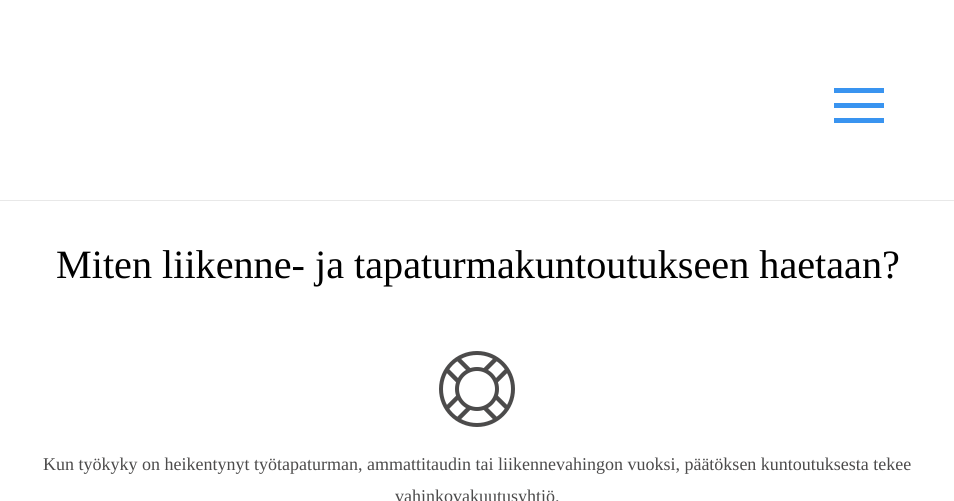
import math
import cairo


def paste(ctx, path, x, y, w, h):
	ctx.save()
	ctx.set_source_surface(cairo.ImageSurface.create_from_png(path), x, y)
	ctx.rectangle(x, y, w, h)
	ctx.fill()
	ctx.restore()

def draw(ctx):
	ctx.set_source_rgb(1, 1, 1)
	ctx.paint()
	ctx.set_source_rgb(0.91, 0.91, 0.91)
	ctx.rectangle(0, 200, 954, 1)
	ctx.fill()
	ctx.set_source_rgb(0.224, 0.58, 0.941)
	ctx.rectangle(834, 88, 50, 5)
	ctx.rectangle(834, 103, 50, 5)
	ctx.rectangle(834, 118, 50, 5)
	ctx.fill()
	ctx.select_font_face('Liberation Serif')
	ctx.set_font_size(40.2)
	ctx.set_source_rgb(0, 0, 0)
	ctx.move_to(56, 278)
	ctx.show_text('Miten liikenne- ja tapaturmakuntoutukseen haetaan?')
	paste(ctx, 'media/1.png', 439, 351, 76, 76)
	ctx.set_font_size(18)
	ctx.set_source_rgb(0.298, 0.294, 0.294)
	ctx.move_to(43, 470)
	ctx.show_text('Kun työkyky on heikentynyt työtapaturman, ammattitaudin tai liikennevahingon vuoksi, päätöksen kuntoutuksesta tekee')
	ctx.move_to(395, 502)
	ctx.show_text('vahinkovakuutusyhtiö.')


surface = cairo.ImageSurface(cairo.FORMAT_RGB24, 954, 501)
ctx = cairo.Context(surface)
options = cairo.FontOptions()
options.set_hint_metrics(cairo.HINT_METRICS_OFF)
options.set_hint_style(cairo.HINT_STYLE_NONE)
ctx.set_font_options(options)
ctx.set_miter_limit(4)
draw(ctx)
surface.write_to_png('image.png')
